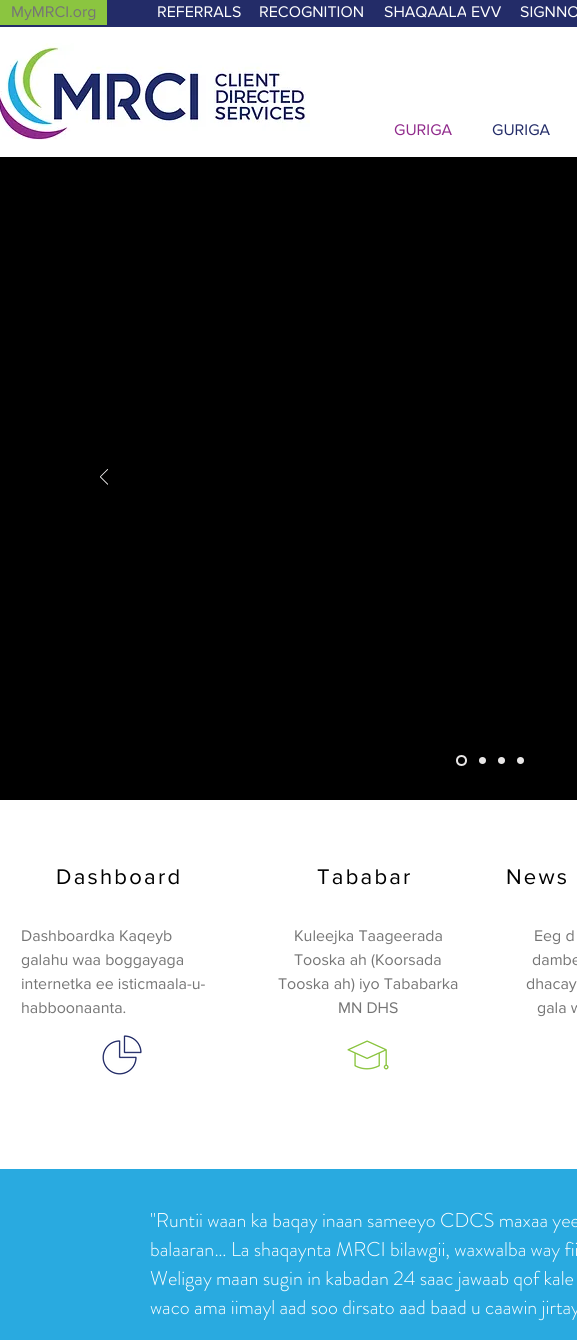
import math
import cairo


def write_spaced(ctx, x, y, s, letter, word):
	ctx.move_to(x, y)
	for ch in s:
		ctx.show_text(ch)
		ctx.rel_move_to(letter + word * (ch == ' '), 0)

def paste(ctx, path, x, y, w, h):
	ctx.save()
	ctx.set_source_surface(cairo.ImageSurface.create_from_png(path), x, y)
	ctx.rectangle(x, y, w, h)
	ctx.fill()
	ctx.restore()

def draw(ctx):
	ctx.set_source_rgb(1, 1, 1)
	ctx.paint()
	ctx.set_source_rgb(0.137, 0.173, 0.408)
	ctx.rectangle(0, 15, 577, 12)
	ctx.fill()
	ctx.set_source_rgb(0.545, 0.773, 0.251)
	ctx.rectangle(0, 0, 107, 25)
	ctx.fill()
	ctx.select_font_face('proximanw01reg')
	ctx.set_font_size(16)
	ctx.set_source_rgb(0.459, 0.459, 0.459)
	ctx.move_to(11, 17)
	ctx.show_text('MyMRCI.org')
	ctx.set_source_rgb(0.137, 0.173, 0.408)
	ctx.rectangle(107, 0, 470, 15)
	ctx.fill()
	ctx.set_source_rgb(1, 1, 1)
	for x, y, s in [
		(157, 17, 'REFERRALS'),
		(259, 17, 'RECOGNITION'),
		(384, 17, 'SHAQAALA'),
	]:
		ctx.move_to(x, y)
		ctx.show_text(s)
	ctx.set_source_rgb(0.137, 0.173, 0.408)
	ctx.rectangle(466, 14, 2, 3)
	ctx.fill()
	ctx.set_source_rgb(1, 1, 1)
	ctx.move_to(471, 17)
	ctx.show_text('EVV')
	ctx.move_to(520, 17)
	ctx.show_text('SIGNNO')
	paste(ctx, 'media/1.png', 0, 43, 310, 97)
	ctx.set_source_rgb(0.565, 0.165, 0.545)
	ctx.move_to(394, 135)
	ctx.show_text('GURIGA')
	ctx.set_source_rgb(0.137, 0.173, 0.408)
	ctx.move_to(492, 135)
	ctx.show_text('GURIGA')
	ctx.set_source_rgb(0, 0, 0)
	ctx.rectangle(0, 157, 577, 643)
	ctx.fill()
	paste(ctx, 'media/2.png', 100, 469, 8, 16)
	ctx.arc(461.5, 760.5, 4.5, 0, 2 * math.pi)
	ctx.set_source_rgb(0.91, 0.902, 0.902)
	ctx.stroke()
	ctx.arc(482.5, 760.5, 3.5, 0, 2 * math.pi)
	ctx.fill()
	ctx.arc(501.5, 760.5, 3.5, 0, 2 * math.pi)
	ctx.fill()
	ctx.arc(520.5, 760.5, 3.5, 0, 2 * math.pi)
	ctx.fill()
	ctx.set_font_size(22)
	ctx.set_source_rgb(0, 0, 0)
	write_spaced(ctx, 56, 884, 'Dashboard', 2.25, 0)
	ctx.set_font_size(16)
	ctx.set_source_rgb(0.459, 0.459, 0.459)
	for x, y, s in [
		(21, 941, 'Dashboardka Kaqeyb'),
		(21, 965, 'galahu waa boggayaga'),
		(21, 989, 'internetka ee isticmaala-u-'),
		(21, 1013, 'habboonaanta.'),
	]:
		ctx.move_to(x, y)
		ctx.show_text(s)
	paste(ctx, 'media/3.png', 102, 1035, 40, 40)
	ctx.set_font_size(22)
	ctx.set_source_rgb(0, 0, 0)
	write_spaced(ctx, 317, 884, 'Tababar', 2.25, 0)
	ctx.set_font_size(16)
	ctx.set_source_rgb(0.459, 0.459, 0.459)
	for x, y, s in [
		(294, 941, 'Kuleejka Taageerada'),
		(294, 965, 'Tooska ah (Koorsada'),
		(278, 989, 'Tooska ah) iyo Tababarka'),
		(338, 1013, 'MN DHS'),
	]:
		ctx.move_to(x, y)
		ctx.show_text(s)
	paste(ctx, 'media/4.png', 347, 1040, 42, 30)
	ctx.set_font_size(22)
	ctx.set_source_rgb(0, 0, 0)
	write_spaced(ctx, 506, 884, 'News', 2.25, 0)
	ctx.set_font_size(16)
	ctx.set_source_rgb(0.459, 0.459, 0.459)
	for x, y, s in [
		(534, 941, 'Eeg d'),
		(532, 965, 'dambe'),
		(526, 989, 'dhacay'),
		(537, 1013, 'gala w'),
	]:
		ctx.move_to(x, y)
		ctx.show_text(s)
	ctx.set_source_rgb(0.161, 0.667, 0.878)
	ctx.rectangle(0, 1169, 577, 171)
	ctx.fill()
	ctx.select_font_face('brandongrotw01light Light')
	ctx.set_font_size(20)
	ctx.set_source_rgb(1, 1, 1)
	for x, y, s in [
		(150, 1227, '"Runtii waan ka baqay inaan sameeyo CDCS maxaa yee'),
		(150, 1256, 'balaaran… La shaqaynta MRCI bilawgii, waxwalba way fii'),
		(150, 1285, 'Weligay maan sugin in kabadan 24 saac jawaab qof kale'),
		(150, 1314, 'waco ama iimayl aad soo dirsato aad baad u caawin jirtay'),
	]:
		ctx.move_to(x, y)
		ctx.show_text(s)


surface = cairo.ImageSurface(cairo.FORMAT_RGB24, 577, 1340)
ctx = cairo.Context(surface)
options = cairo.FontOptions()
options.set_hint_metrics(cairo.HINT_METRICS_OFF)
options.set_hint_style(cairo.HINT_STYLE_NONE)
ctx.set_font_options(options)
ctx.set_miter_limit(4)
draw(ctx)
surface.write_to_png('image.png')
